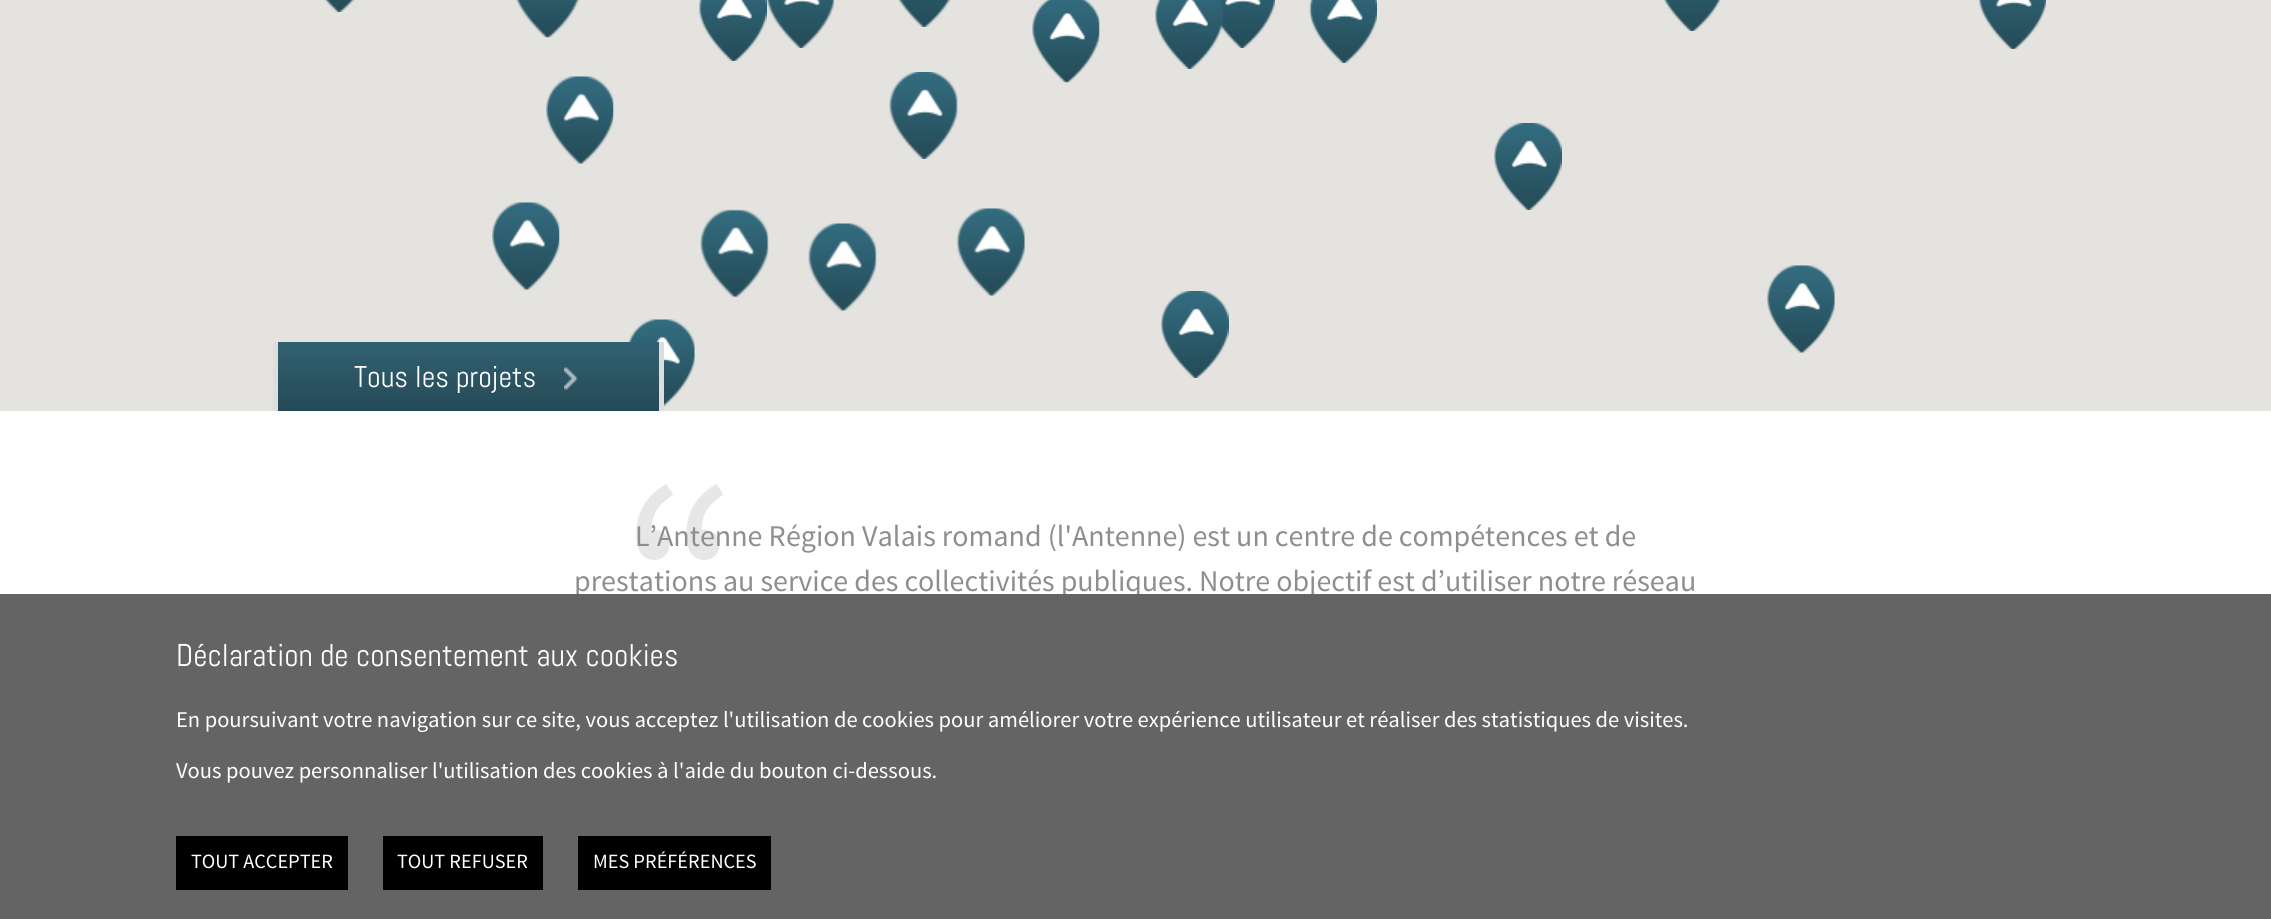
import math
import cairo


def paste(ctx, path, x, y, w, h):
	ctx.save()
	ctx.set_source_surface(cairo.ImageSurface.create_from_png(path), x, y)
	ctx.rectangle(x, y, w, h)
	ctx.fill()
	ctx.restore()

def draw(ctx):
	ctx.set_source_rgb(1, 1, 1)
	ctx.paint()
	ctx.set_source_rgb(0.898, 0.89, 0.875)
	ctx.rectangle(0, 0, 2271, 411)
	ctx.fill()
	paste(ctx, 'media/1.png', 324, 0, 31, 12)
	paste(ctx, 'media/2.png', 515, 0, 65, 38)
	paste(ctx, 'media/3.png', 699, 0, 68, 61)
	paste(ctx, 'media/4.png', 767, 0, 68, 48)
	paste(ctx, 'media/5.png', 898, 0, 53, 27)
	paste(ctx, 'media/6.png', 1032, 0, 68, 83)
	paste(ctx, 'media/8.png', 1217, 0, 58, 48)
	paste(ctx, 'media/7.png', 1155, 0, 68, 69)
	paste(ctx, 'media/9.png', 1309, 0, 68, 63)
	paste(ctx, 'media/10.png', 1663, 0, 58, 31)
	paste(ctx, 'media/11.png', 1979, 0, 67, 49)
	paste(ctx, 'media/12.png', 546, 76, 68, 88)
	paste(ctx, 'media/13.png', 889, 72, 69, 87)
	paste(ctx, 'media/14.png', 1494, 123, 68, 87)
	paste(ctx, 'media/15.png', 492, 202, 68, 88)
	paste(ctx, 'media/16.png', 628, 319, 67, 88)
	paste(ctx, 'media/17.png', 700, 209, 69, 89)
	paste(ctx, 'media/18.png', 808, 223, 69, 88)
	paste(ctx, 'media/19.png', 956, 208, 69, 88)
	paste(ctx, 'media/14.png', 1161, 291, 68, 87)
	paste(ctx, 'media/20.png', 1767, 265, 68, 88)
	ctx.set_source_rgb(0.867, 0.867, 0.867)
	ctx.rectangle(659, 342, 5, 69)
	ctx.fill()
	ctx.rectangle(273, 342, 5, 69)
	ctx.fill()
	gradient = cairo.LinearGradient(468, 342, 468, 411)
	gradient.add_color_stop_rgba(0, 0.192, 0.38, 0.443, 1)
	gradient.add_color_stop_rgba(1, 0.145, 0.29, 0.341, 1)
	ctx.set_source(gradient)
	ctx.rectangle(278, 342, 381, 69)
	ctx.fill()
	ctx.select_font_face('Abel')
	ctx.set_font_size(30)
	ctx.set_source_rgb(1, 1, 1)
	ctx.move_to(354, 387)
	ctx.show_text('Tous les projets')
	paste(ctx, 'media/21.png', 564, 367, 14, 23)
	ctx.select_font_face('Source Sans Pro')
	ctx.set_font_size(285)
	ctx.set_source_rgb(0.906, 0.906, 0.906)
	ctx.move_to(620, 682)
	ctx.show_text('“')
	ctx.set_font_size(30)
	ctx.set_source_rgb(0.557, 0.557, 0.557)
	ctx.move_to(635, 546)
	ctx.show_text('L’Antenne Région Valais romand (l\'Antenne) est un centre de compétences et de')
	ctx.move_to(574, 591)
	ctx.show_text('prestations au service des collectivités publiques. Notre objectif est d’utiliser notre réseau')
	ctx.set_source_rgb(0.396, 0.392, 0.392)
	ctx.rectangle(0, 594, 2271, 325)
	ctx.fill()
	ctx.select_font_face('Abel')
	ctx.set_font_size(31.5)
	ctx.set_source_rgb(1, 1, 1)
	ctx.move_to(176, 666)
	ctx.show_text('Déclaration de consentement aux cookies')
	ctx.select_font_face('Source Sans Pro')
	ctx.set_font_size(22.5)
	ctx.move_to(176, 727)
	ctx.show_text('En poursuivant votre navigation sur ce site, vous acceptez l\'utilisation de cookies pour améliorer votre expérience utilisateur et réaliser des statistiques de visites.')
	ctx.move_to(176, 778)
	ctx.show_text('Vous pouvez personnaliser l\'utilisation des cookies à l\'aide du bouton ci-dessous.')
	ctx.set_source_rgb(0, 0, 0)
	ctx.rectangle(176, 836, 172, 54)
	ctx.fill()
	ctx.set_font_size(20.25)
	ctx.set_source_rgb(1, 1, 1)
	ctx.move_to(191, 868)
	ctx.show_text('TOUT ACCEPTER')
	ctx.set_source_rgb(0, 0, 0)
	ctx.rectangle(383, 836, 160, 54)
	ctx.fill()
	ctx.set_source_rgb(1, 1, 1)
	ctx.move_to(397, 868)
	ctx.show_text('TOUT REFUSER')
	ctx.set_source_rgb(0, 0, 0)
	ctx.rectangle(578, 836, 193, 54)
	ctx.fill()
	ctx.set_source_rgb(1, 1, 1)
	ctx.move_to(593, 868)
	ctx.show_text('MES PRÉFÉRENCES')


surface = cairo.ImageSurface(cairo.FORMAT_RGB24, 2271, 919)
ctx = cairo.Context(surface)
options = cairo.FontOptions()
options.set_hint_metrics(cairo.HINT_METRICS_OFF)
options.set_hint_style(cairo.HINT_STYLE_NONE)
ctx.set_font_options(options)
ctx.set_miter_limit(4)
draw(ctx)
surface.write_to_png('image.png')
